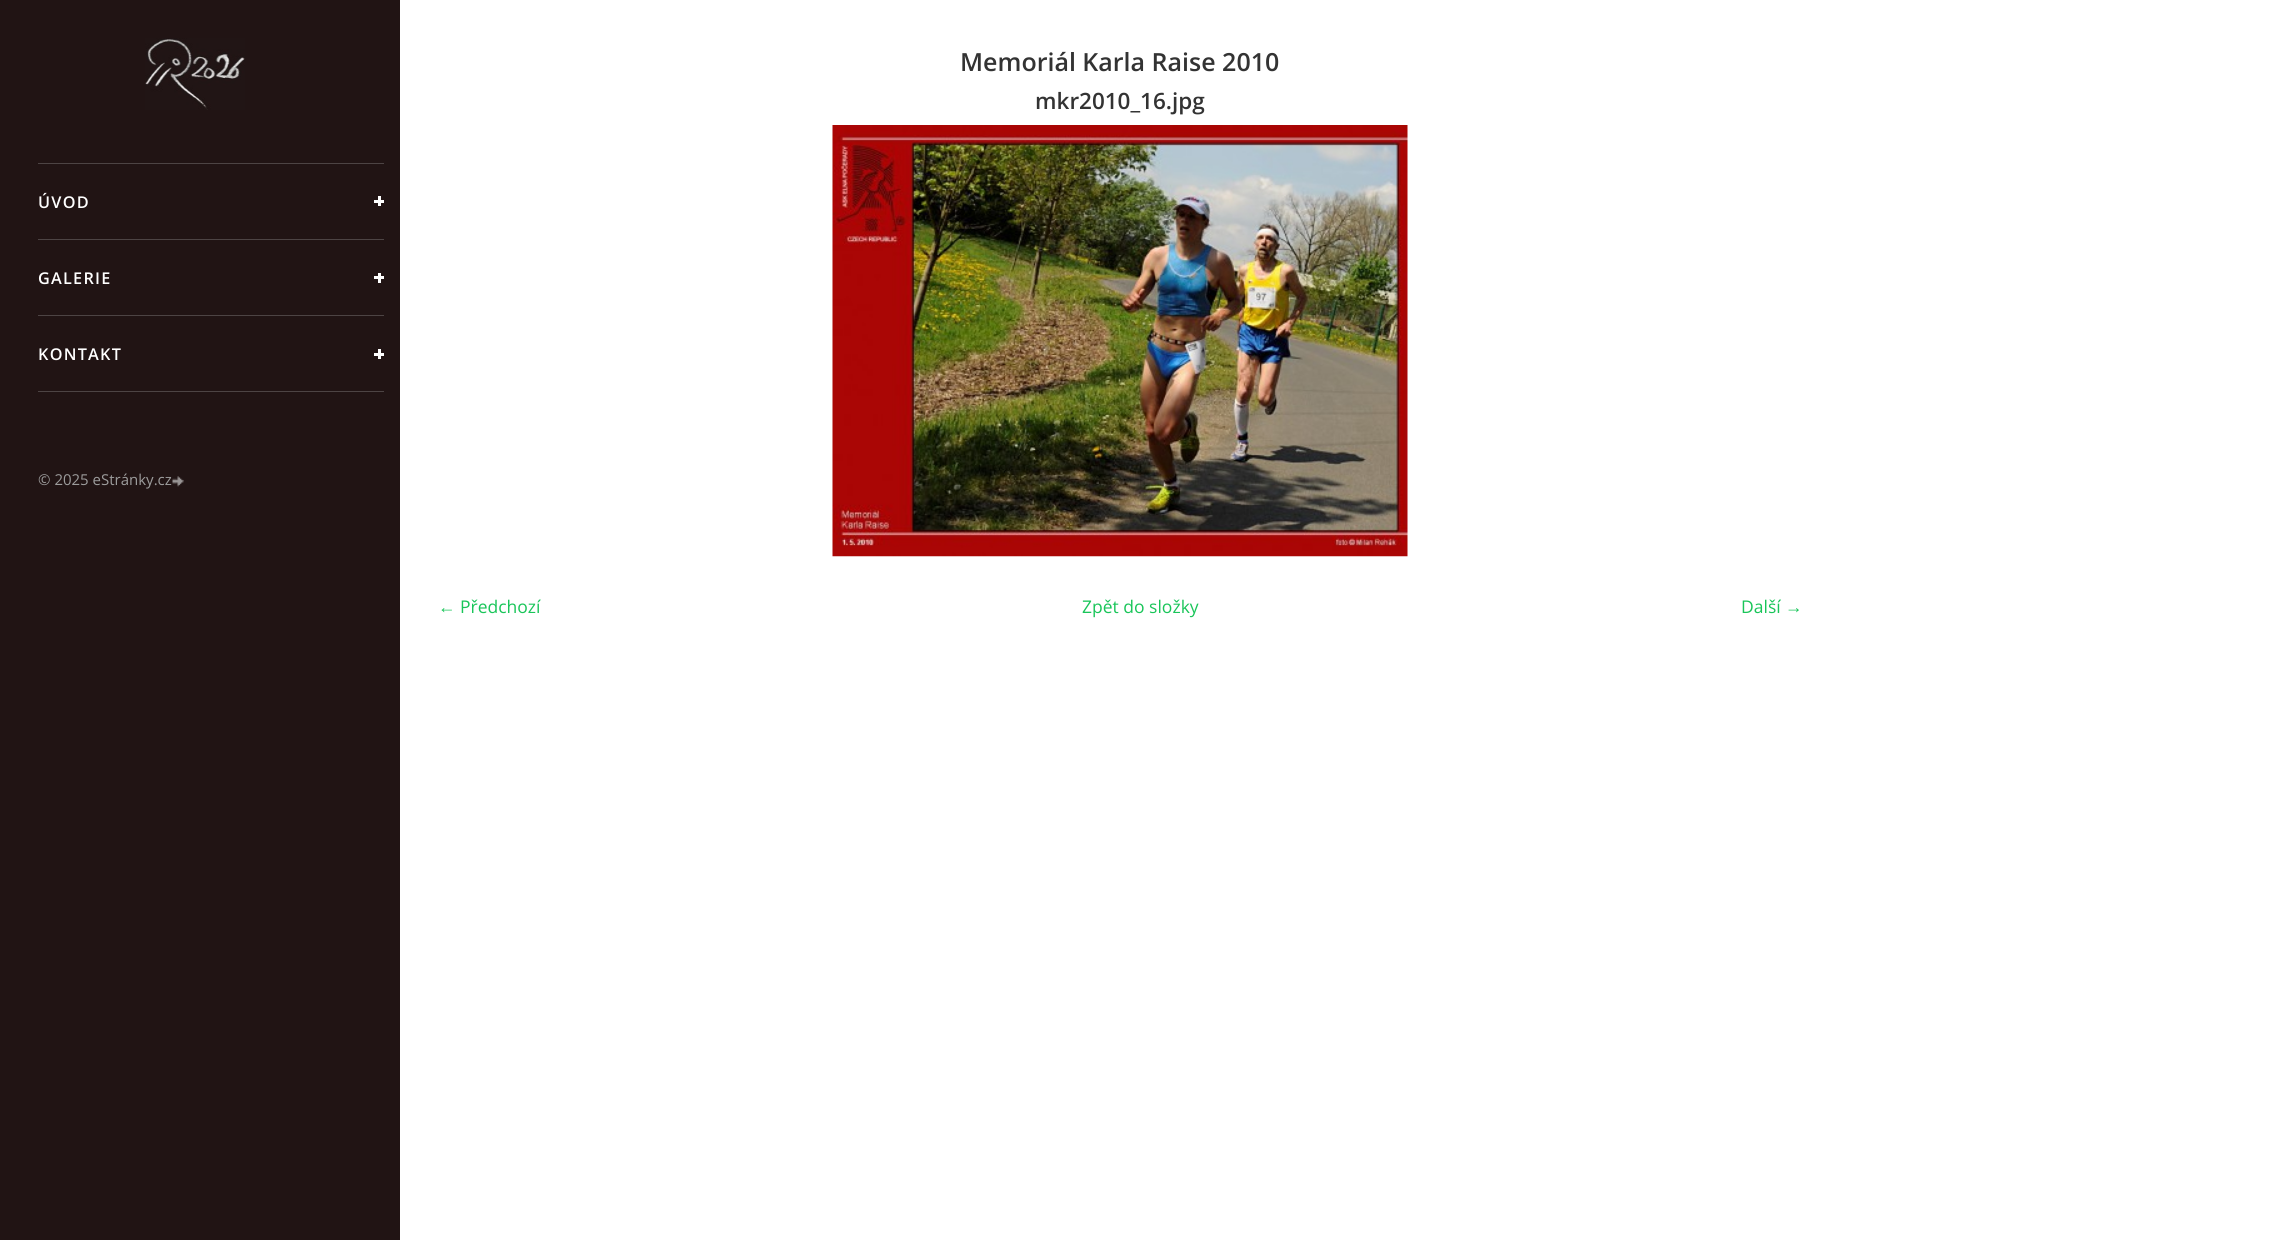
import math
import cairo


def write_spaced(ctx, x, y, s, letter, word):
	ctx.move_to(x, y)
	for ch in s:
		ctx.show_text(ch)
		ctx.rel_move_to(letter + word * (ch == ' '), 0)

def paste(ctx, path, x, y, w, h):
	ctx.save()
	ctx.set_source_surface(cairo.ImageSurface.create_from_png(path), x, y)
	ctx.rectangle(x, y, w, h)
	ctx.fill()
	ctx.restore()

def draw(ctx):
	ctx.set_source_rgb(1, 1, 1)
	ctx.paint()
	ctx.set_source_rgb(0.129, 0.082, 0.082)
	ctx.rectangle(0, 0, 400, 1240)
	ctx.fill()
	paste(ctx, 'media/1.png', 145, 38, 100, 72)
	ctx.set_source_rgb(0.302, 0.267, 0.267)
	ctx.rectangle(38, 163, 346, 1)
	ctx.fill()
	ctx.select_font_face('Open Sans SemiBold')
	ctx.set_font_size(16.25)
	ctx.set_source_rgb(1, 1, 1)
	write_spaced(ctx, 38, 208, 'ÚVOD', 1.25, 0)
	ctx.rectangle(374, 200, 10, 3)
	ctx.rectangle(378, 196, 3, 10)
	ctx.fill()
	ctx.set_source_rgb(0.302, 0.267, 0.267)
	ctx.rectangle(38, 239, 346, 1)
	ctx.fill()
	ctx.set_source_rgb(1, 1, 1)
	write_spaced(ctx, 38, 284, 'GALERIE', 1.25, 0)
	ctx.rectangle(374, 276, 10, 3)
	ctx.rectangle(378, 273, 3, 10)
	ctx.fill()
	ctx.set_source_rgb(0.302, 0.267, 0.267)
	ctx.rectangle(38, 315, 346, 1)
	ctx.rectangle(38, 391, 346, 1)
	ctx.fill()
	ctx.set_source_rgb(1, 1, 1)
	write_spaced(ctx, 38, 360, 'KONTAKT', 1.25, 0)
	ctx.rectangle(374, 353, 10, 3)
	ctx.fill()
	ctx.rectangle(378, 349, 3, 10)
	ctx.fill()
	ctx.select_font_face('Open Sans')
	ctx.set_font_size(15)
	ctx.set_source_rgb(0.612, 0.612, 0.612)
	ctx.move_to(38, 485)
	ctx.show_text('© 2025 eStránky.cz')
	paste(ctx, 'media/2.png', 172, 476, 12, 11)
	ctx.select_font_face('Open Sans SemiBold')
	ctx.set_font_size(25)
	ctx.set_source_rgb(0.2, 0.2, 0.2)
	ctx.move_to(960, 71)
	ctx.show_text('Memoriál Karla Raise 2010')
	ctx.set_font_size(22.5)
	ctx.move_to(1035, 109)
	ctx.show_text('mkr2010_16.jpg')
	paste(ctx, 'media/3.png', 832, 125, 576, 432)
	ctx.select_font_face('Liberation Serif')
	ctx.set_font_size(17.5)
	ctx.set_source_rgb(0.098, 0.773, 0.349)
	ctx.move_to(438, 613)
	ctx.show_text('←')
	ctx.select_font_face('Open Sans')
	for x, y, s in [
		(460, 613, 'Předchozí'),
		(1082, 613, 'Zpět do složky'),
		(1741, 613, 'Další'),
	]:
		ctx.move_to(x, y)
		ctx.show_text(s)
	ctx.select_font_face('Liberation Serif')
	ctx.move_to(1785, 613)
	ctx.show_text('→')


surface = cairo.ImageSurface(cairo.FORMAT_RGB24, 2277, 1240)
ctx = cairo.Context(surface)
options = cairo.FontOptions()
options.set_hint_metrics(cairo.HINT_METRICS_OFF)
options.set_hint_style(cairo.HINT_STYLE_NONE)
ctx.set_font_options(options)
ctx.set_miter_limit(4)
draw(ctx)
surface.write_to_png('image.png')
